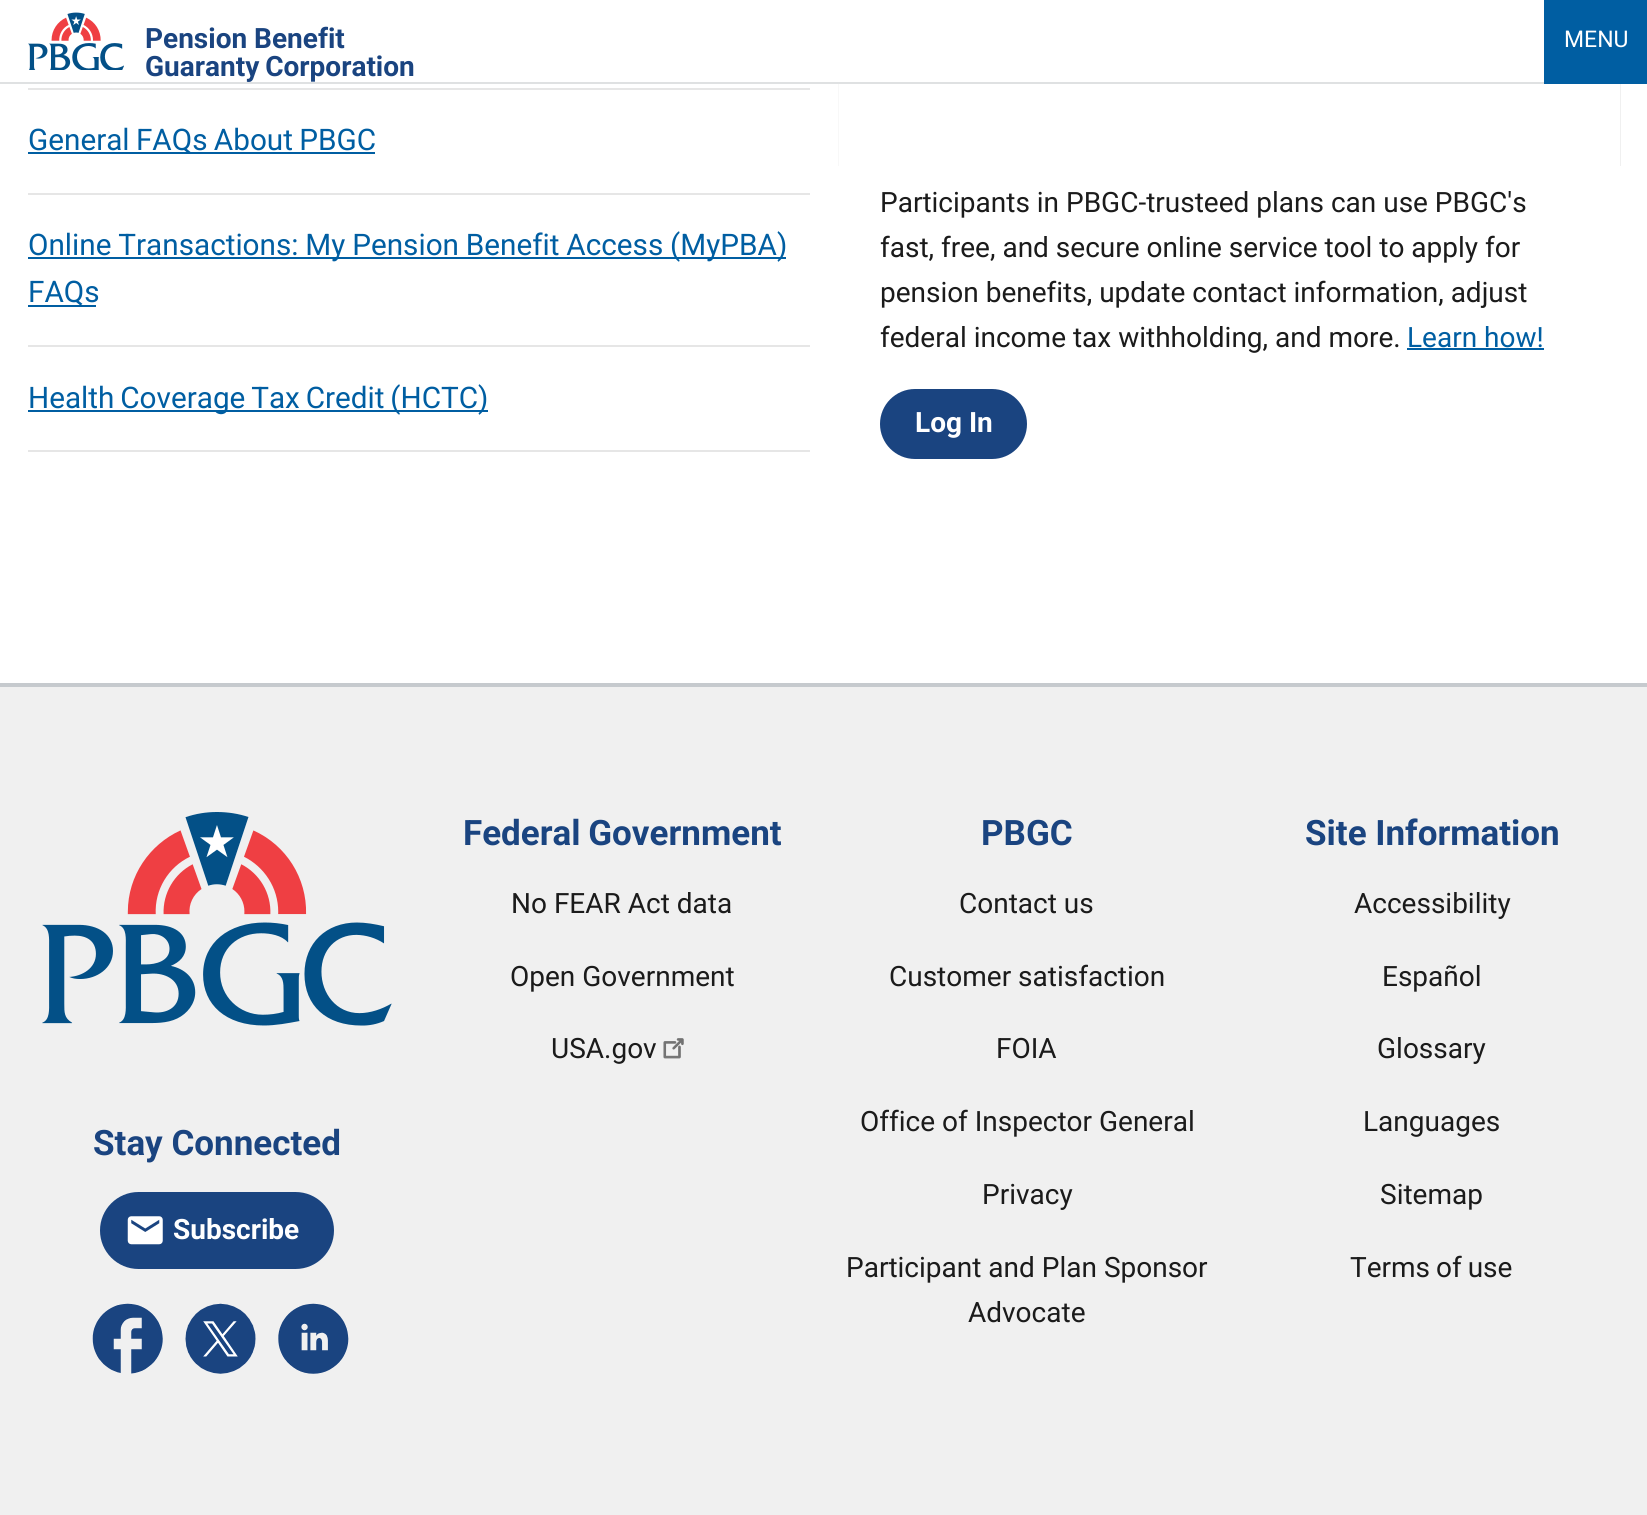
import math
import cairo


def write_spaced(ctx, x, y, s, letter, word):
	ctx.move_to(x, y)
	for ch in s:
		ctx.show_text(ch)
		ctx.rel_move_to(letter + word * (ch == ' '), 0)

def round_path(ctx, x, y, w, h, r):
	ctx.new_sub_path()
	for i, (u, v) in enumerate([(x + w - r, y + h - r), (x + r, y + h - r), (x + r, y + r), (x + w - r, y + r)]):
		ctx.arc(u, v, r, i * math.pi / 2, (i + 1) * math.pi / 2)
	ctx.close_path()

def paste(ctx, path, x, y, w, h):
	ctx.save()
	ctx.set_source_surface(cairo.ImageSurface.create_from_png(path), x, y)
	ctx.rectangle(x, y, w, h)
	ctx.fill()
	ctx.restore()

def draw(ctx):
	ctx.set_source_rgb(1, 1, 1)
	ctx.paint()
	ctx.set_source_rgb(0.875, 0.882, 0.886)
	ctx.rectangle(0, 82, 1544, 2)
	ctx.fill()
	paste(ctx, 'media/1.png', 28, 12, 96, 58)
	ctx.select_font_face('Roboto', cairo.FONT_SLANT_NORMAL, cairo.FONT_WEIGHT_BOLD)
	ctx.set_font_size(28)
	ctx.set_source_rgb(0.102, 0.267, 0.502)
	ctx.move_to(145, 48)
	ctx.show_text('Pension Benefit')
	write_spaced(ctx, 145, 76, 'Guaranty Corporation', 0, -1)
	ctx.set_source_rgb(0, 0.369, 0.635)
	ctx.rectangle(1544, 0, 103, 84)
	ctx.fill()
	ctx.select_font_face('Roboto')
	ctx.set_font_size(23)
	ctx.set_source_rgb(1, 1, 1)
	ctx.move_to(1564, 47)
	ctx.show_text('MENU')
	ctx.set_source_rgb(0.902, 0.902, 0.902)
	ctx.rectangle(28, 88, 782, 2)
	ctx.rectangle(28, 193, 782, 2)
	ctx.fill()
	ctx.set_source_rgb(0, 0.369, 0.635)
	ctx.rectangle(28, 152, 347, 2)
	ctx.fill()
	ctx.set_font_size(29.7)
	write_spaced(ctx, 28, 150, 'General FAQs About PBGC', 0, -1)
	ctx.set_source_rgb(0.902, 0.902, 0.902)
	ctx.rectangle(28, 345, 782, 2)
	ctx.fill()
	ctx.set_source_rgb(0, 0.369, 0.635)
	ctx.rectangle(28, 257, 758, 2)
	ctx.fill()
	write_spaced(ctx, 28, 255, 'Online Transactions: My Pension Benefit Access (MyPBA)', 0, -0.5)
	ctx.rectangle(28, 305, 68, 2)
	ctx.fill()
	ctx.move_to(28, 302)
	ctx.show_text('FAQs')
	ctx.set_source_rgb(0.902, 0.902, 0.902)
	ctx.rectangle(28, 450, 782, 2)
	ctx.fill()
	ctx.set_source_rgb(0, 0.369, 0.635)
	ctx.rectangle(28, 410, 460, 2)
	ctx.fill()
	write_spaced(ctx, 28, 408, 'Health Coverage Tax Credit (HCTC)', 0, -1.5)
	ctx.set_source_rgb(0.941, 0.941, 0.941)
	ctx.rectangle(838, 84, 783, 82)
	ctx.fill()
	paste(ctx, 'media/2.png', 838, 84, 782, 82)
	ctx.set_font_size(28)
	ctx.set_source_rgb(0.106, 0.106, 0.106)
	for x, y, s in [
		(880, 212, 'Participants in PBGC-trusteed plans can use PBGC\'s'),
		(880, 257, 'fast, free, and secure online service tool to apply for'),
		(880, 302, 'pension benefits, update contact information, adjust'),
		(880, 347, 'federal income tax withholding, and more.'),
	]:
		ctx.move_to(x, y)
		ctx.show_text(s)
	ctx.set_source_rgb(0, 0.369, 0.635)
	ctx.move_to(1407, 347)
	ctx.show_text('Learn how!')
	ctx.rectangle(1407, 348, 137, 2)
	ctx.fill()
	ctx.set_source_rgb(0.102, 0.267, 0.502)
	round_path(ctx, 880, 389, 147, 70, 35)
	ctx.fill()
	ctx.select_font_face('Roboto', cairo.FONT_SLANT_NORMAL, cairo.FONT_WEIGHT_BOLD)
	ctx.set_source_rgb(1, 1, 1)
	ctx.move_to(915, 432)
	ctx.show_text('Log In')
	ctx.set_source_rgb(0.941, 0.941, 0.941)
	ctx.rectangle(0, 687, 1647, 828)
	ctx.fill()
	ctx.set_source_rgb(0.776, 0.792, 0.808)
	ctx.rectangle(0, 683, 1647, 4)
	ctx.fill()
	paste(ctx, 'media/3.png', 42, 812, 350, 214)
	ctx.set_font_size(35)
	ctx.set_source_rgb(0.102, 0.267, 0.502)
	ctx.move_to(93, 1155)
	ctx.show_text('Stay Connected')
	round_path(ctx, 100, 1192, 234, 77, 38.5)
	ctx.fill()
	paste(ctx, 'media/4.png', 127, 1216, 36, 29)
	ctx.set_font_size(28)
	ctx.set_source_rgb(1, 1, 1)
	ctx.move_to(173, 1239)
	ctx.show_text('Subscribe')
	paste(ctx, 'media/5.png', 92, 1303, 71, 71)
	paste(ctx, 'media/6.png', 185, 1303, 71, 71)
	paste(ctx, 'media/7.png', 278, 1303, 71, 71)
	ctx.set_font_size(35)
	ctx.set_source_rgb(0.102, 0.267, 0.502)
	write_spaced(ctx, 463, 845, 'Federal Government', 0, -1)
	ctx.select_font_face('Roboto')
	ctx.set_font_size(28)
	ctx.set_source_rgb(0.106, 0.106, 0.106)
	for x, y, s in [
		(511, 913, 'No FEAR Act data'),
		(510, 986, 'Open Government'),
		(551, 1058, 'USA.gov'),
	]:
		ctx.move_to(x, y)
		ctx.show_text(s)
	paste(ctx, 'media/8.png', 663, 1038, 21, 21)
	ctx.select_font_face('Roboto', cairo.FONT_SLANT_NORMAL, cairo.FONT_WEIGHT_BOLD)
	ctx.set_font_size(35)
	ctx.set_source_rgb(0.102, 0.267, 0.502)
	ctx.move_to(981, 845)
	ctx.show_text('PBGC')
	ctx.select_font_face('Roboto')
	ctx.set_font_size(28)
	ctx.set_source_rgb(0.106, 0.106, 0.106)
	for x, y, s in [
		(959, 913, 'Contact us'),
		(889, 986, 'Customer satisfaction'),
		(996, 1058, 'FOIA'),
		(860, 1131, 'Office of Inspector General'),
		(982, 1204, 'Privacy'),
		(846, 1277, 'Participant and Plan Sponsor'),
		(968, 1322, 'Advocate'),
	]:
		ctx.move_to(x, y)
		ctx.show_text(s)
	ctx.select_font_face('Roboto', cairo.FONT_SLANT_NORMAL, cairo.FONT_WEIGHT_BOLD)
	ctx.set_font_size(35)
	ctx.set_source_rgb(0.102, 0.267, 0.502)
	ctx.move_to(1305, 845)
	ctx.show_text('Site Information')
	ctx.select_font_face('Roboto')
	ctx.set_font_size(28)
	ctx.set_source_rgb(0.106, 0.106, 0.106)
	for x, y, s in [
		(1354, 913, 'Accessibility'),
		(1382, 986, 'Español'),
		(1377, 1058, 'Glossary'),
		(1363, 1131, 'Languages'),
		(1380, 1204, 'Sitemap'),
	]:
		ctx.move_to(x, y)
		ctx.show_text(s)
	write_spaced(ctx, 1350, 1277, 'Terms of use', 0, -1)


surface = cairo.ImageSurface(cairo.FORMAT_RGB24, 1647, 1515)
ctx = cairo.Context(surface)
options = cairo.FontOptions()
options.set_hint_metrics(cairo.HINT_METRICS_OFF)
options.set_hint_style(cairo.HINT_STYLE_NONE)
ctx.set_font_options(options)
ctx.set_miter_limit(4)
draw(ctx)
surface.write_to_png('image.png')
